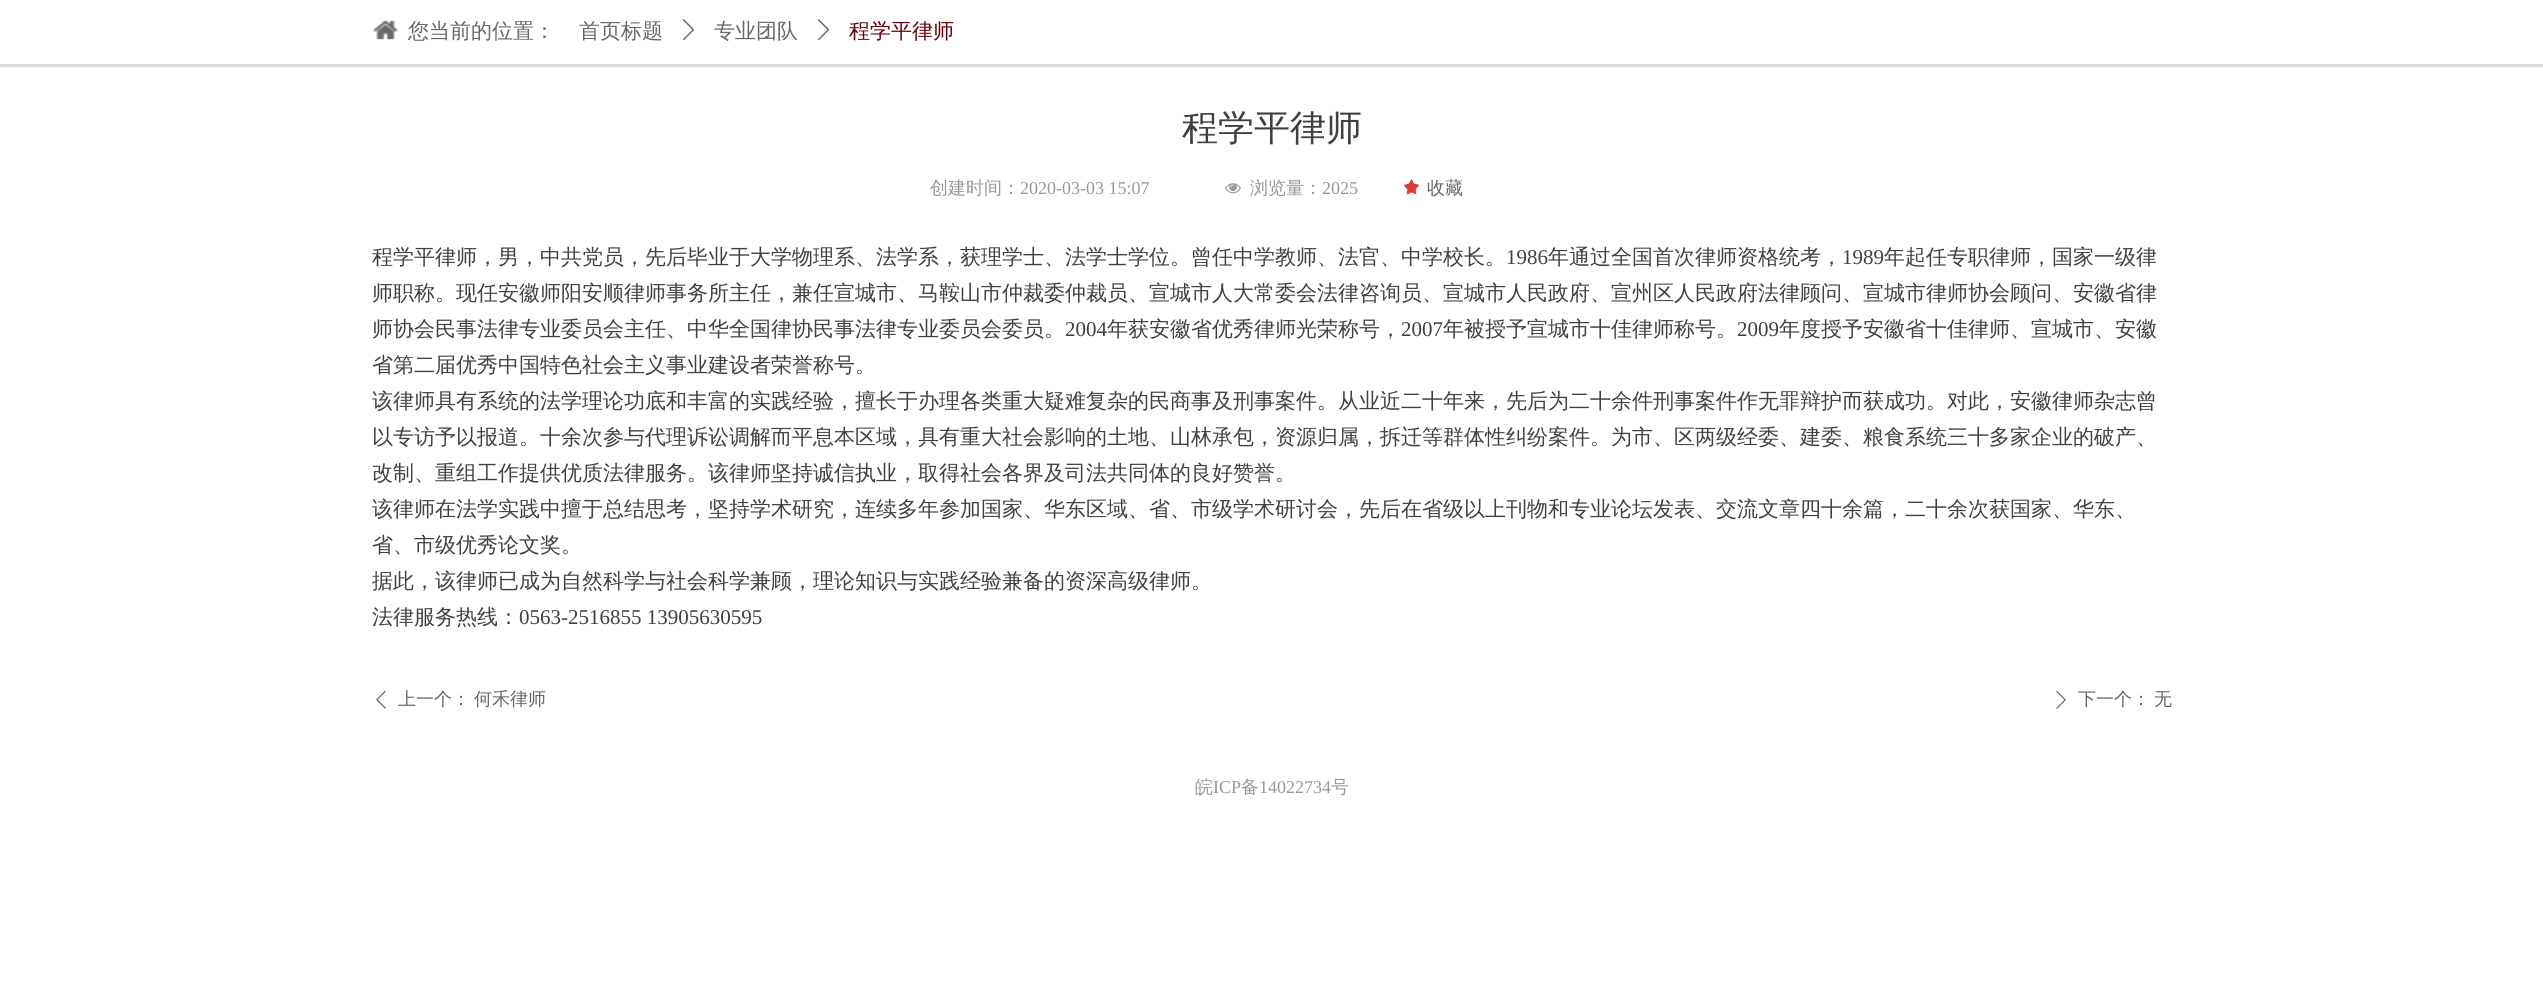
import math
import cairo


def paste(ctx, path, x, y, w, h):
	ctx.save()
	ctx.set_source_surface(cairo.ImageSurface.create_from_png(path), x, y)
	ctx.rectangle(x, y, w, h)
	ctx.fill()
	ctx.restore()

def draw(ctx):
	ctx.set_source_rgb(1, 1, 1)
	ctx.paint()
	paste(ctx, 'media/1.png', 373, 20, 25, 20)
	ctx.select_font_face('WenQuanYi Zen Hei Medium')
	ctx.set_font_size(21)
	ctx.set_source_rgb(0.4, 0.4, 0.4)
	ctx.move_to(408, 38)
	ctx.show_text('您当前的位置：')
	ctx.move_to(579, 38)
	ctx.show_text('首页标题')
	paste(ctx, 'media/2.png', 682, 19, 12, 22)
	ctx.move_to(714, 38)
	ctx.show_text('专业团队')
	paste(ctx, 'media/2.png', 817, 19, 12, 22)
	ctx.set_source_rgb(0.392, 0, 0.047)
	ctx.move_to(849, 38)
	ctx.show_text('程学平律师')
	ctx.set_source_rgb(0.855, 0.855, 0.855)
	ctx.rectangle(0, 64, 2543, 3)
	ctx.fill()
	ctx.set_font_size(36)
	ctx.set_source_rgb(0.251, 0.251, 0.251)
	ctx.move_to(1182, 140)
	ctx.show_text('程学平律师')
	ctx.set_font_size(18)
	ctx.set_source_rgb(0.596, 0.596, 0.596)
	ctx.move_to(930, 194)
	ctx.show_text('创建时间：')
	ctx.select_font_face('Liberation Serif')
	ctx.move_to(1020, 194)
	ctx.show_text('2020-03-03 15:07')
	paste(ctx, 'media/3.png', 1225, 183, 16, 11)
	ctx.select_font_face('WenQuanYi Zen Hei Medium')
	ctx.move_to(1250, 194)
	ctx.show_text('浏览量：')
	ctx.select_font_face('Liberation Serif')
	ctx.move_to(1322, 194)
	ctx.show_text('2025')
	paste(ctx, 'media/4.png', 1403, 179, 17, 16)
	ctx.select_font_face('WenQuanYi Zen Hei Medium')
	ctx.set_source_rgb(0.4, 0.4, 0.4)
	ctx.move_to(1427, 194)
	ctx.show_text('收藏')
	ctx.set_font_size(21)
	ctx.set_source_rgb(0.251, 0.251, 0.251)
	ctx.move_to(372, 264)
	ctx.show_text('程学平律师，男，中共党员，先后毕业于大学物理系、法学系，获理学士、法学士学位。曾任中学教师、法官、中学校长。')
	ctx.select_font_face('Liberation Serif')
	ctx.move_to(1506, 264)
	ctx.show_text('1986')
	ctx.select_font_face('WenQuanYi Zen Hei Medium')
	ctx.move_to(1548, 264)
	ctx.show_text('年通过全国首次律师资格统考，')
	ctx.select_font_face('Liberation Serif')
	ctx.move_to(1842, 264)
	ctx.show_text('1989')
	ctx.select_font_face('WenQuanYi Zen Hei Medium')
	for x, y, s in [
		(1884, 264, '年起任专职律师，国家一级律'),
		(372, 300, '师职称。现任安徽师阳安顺律师事务所主任，兼任宣城市、马鞍山市仲裁委仲裁员、宣城市人大常委会法律咨询员、宣城市人民政府、宣州区人民政府法律顾问、宣城市律师协会顾问、安徽省律'),
		(372, 336, '师协会民事法律专业委员会主任、中华全国律协民事法律专业委员会委员。'),
	]:
		ctx.move_to(x, y)
		ctx.show_text(s)
	ctx.select_font_face('Liberation Serif')
	ctx.move_to(1065, 336)
	ctx.show_text('2004')
	ctx.select_font_face('WenQuanYi Zen Hei Medium')
	ctx.move_to(1107, 336)
	ctx.show_text('年获安徽省优秀律师光荣称号，')
	ctx.select_font_face('Liberation Serif')
	ctx.move_to(1401, 336)
	ctx.show_text('2007')
	ctx.select_font_face('WenQuanYi Zen Hei Medium')
	ctx.move_to(1443, 336)
	ctx.show_text('年被授予宣城市十佳律师称号。')
	ctx.select_font_face('Liberation Serif')
	ctx.move_to(1737, 336)
	ctx.show_text('2009')
	ctx.select_font_face('WenQuanYi Zen Hei Medium')
	for x, y, s in [
		(1779, 336, '年度授予安徽省十佳律师、宣城市、安徽'),
		(372, 372, '省第二届优秀中国特色社会主义事业建设者荣誉称号。'),
		(372, 408, '该律师具有系统的法学理论功底和丰富的实践经验，擅长于办理各类重大疑难复杂的民商事及刑事案件。从业近二十年来，先后为二十余件刑事案件作无罪辩护而获成功。对此，安徽律师杂志曾'),
		(372, 444, '以专访予以报道。十余次参与代理诉讼调解而平息本区域，具有重大社会影响的土地、山林承包，资源归属，拆迁等群体性纠纷案件。为市、区两级经委、建委、粮食系统三十多家企业的破产、'),
		(372, 480, '改制、重组工作提供优质法律服务。该律师坚持诚信执业，取得社会各界及司法共同体的良好赞誉。'),
		(372, 516, '该律师在法学实践中擅于总结思考，坚持学术研究，连续多年参加国家、华东区域、省、市级学术研讨会，先后在省级以上刊物和专业论坛发表、交流文章四十余篇，二十余次获国家、华东、'),
		(372, 552, '省、市级优秀论文奖。'),
		(372, 588, '据此，该律师已成为自然科学与社会科学兼顾，理论知识与实践经验兼备的资深高级律师。'),
		(372, 624, '法律服务热线：'),
	]:
		ctx.move_to(x, y)
		ctx.show_text(s)
	ctx.select_font_face('Liberation Serif')
	ctx.move_to(519, 624)
	ctx.show_text('0563-2516855 13905630595')
	paste(ctx, 'media/5.png', 376, 690, 10, 19)
	ctx.select_font_face('WenQuanYi Zen Hei Medium')
	ctx.set_font_size(18)
	ctx.set_source_rgb(0.4, 0.4, 0.4)
	ctx.move_to(398, 705)
	ctx.show_text('上一个：')
	ctx.move_to(474, 705)
	ctx.show_text('何禾律师')
	paste(ctx, 'media/6.png', 2056, 690, 10, 19)
	ctx.move_to(2078, 705)
	ctx.show_text('下一个：')
	ctx.move_to(2154, 705)
	ctx.show_text('无')
	ctx.set_source_rgb(0.596, 0.596, 0.596)
	ctx.move_to(1195, 793)
	ctx.show_text('皖')
	ctx.select_font_face('Liberation Serif')
	ctx.move_to(1213, 793)
	ctx.show_text('ICP')
	ctx.select_font_face('WenQuanYi Zen Hei Medium')
	ctx.move_to(1241, 793)
	ctx.show_text('备')
	ctx.select_font_face('Liberation Serif')
	ctx.move_to(1259, 793)
	ctx.show_text('14022734')
	ctx.select_font_face('WenQuanYi Zen Hei Medium')
	ctx.move_to(1331, 793)
	ctx.show_text('号')


surface = cairo.ImageSurface(cairo.FORMAT_RGB24, 2543, 981)
ctx = cairo.Context(surface)
options = cairo.FontOptions()
options.set_hint_metrics(cairo.HINT_METRICS_OFF)
options.set_hint_style(cairo.HINT_STYLE_NONE)
ctx.set_font_options(options)
ctx.set_miter_limit(4)
draw(ctx)
surface.write_to_png('image.png')
